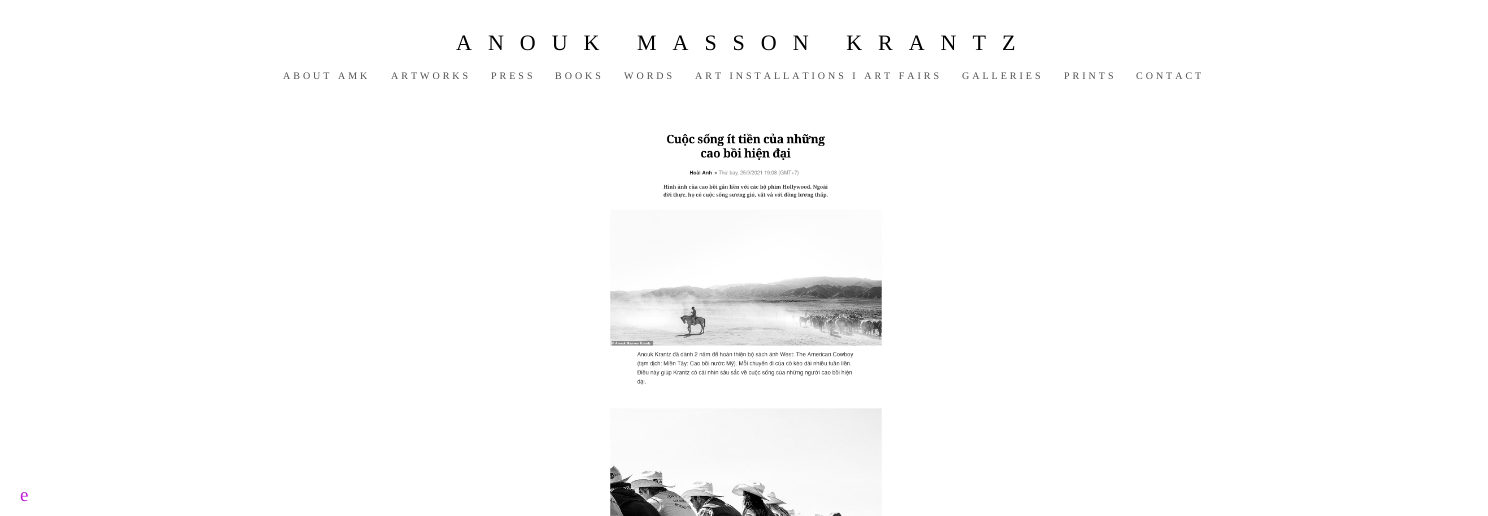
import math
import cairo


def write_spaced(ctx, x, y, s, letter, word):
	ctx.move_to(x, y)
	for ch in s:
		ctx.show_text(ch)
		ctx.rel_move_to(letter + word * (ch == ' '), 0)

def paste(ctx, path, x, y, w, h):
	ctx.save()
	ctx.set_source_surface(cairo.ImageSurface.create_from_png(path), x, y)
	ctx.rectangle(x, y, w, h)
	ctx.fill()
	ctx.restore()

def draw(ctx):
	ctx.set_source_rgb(1, 1, 1)
	ctx.paint()
	ctx.select_font_face('Liberation Serif')
	ctx.set_font_size(22)
	ctx.set_source_rgb(0, 0, 0)
	write_spaced(ctx, 456, 50, 'ANOUK MASSON KRANTZ', 16, 0)
	ctx.set_font_size(10)
	ctx.set_source_rgb(0.31, 0.31, 0.31)
	for x, y, s in [
		(283, 79, 'ABOUT AMK'),
		(391, 79, 'ARTWORKS'),
		(491, 79, 'PRESS'),
		(555, 79, 'BOOKS'),
		(624, 79, 'WORDS'),
		(695, 79, 'ART INSTALLATIONS I ART FAIRS'),
		(962, 79, 'GALLERIES'),
		(1064, 79, 'PRINTS'),
		(1136, 79, 'CONTACT'),
	]:
		write_spaced(ctx, x, y, s, 3, 0)
	ctx.set_font_size(19)
	ctx.set_source_rgb(0.757, 0.106, 0.859)
	ctx.move_to(20, 501)
	ctx.show_text('e')
	paste(ctx, 'media/1.png', 610, 133, 272, 383)


surface = cairo.ImageSurface(cairo.FORMAT_RGB24, 1488, 516)
ctx = cairo.Context(surface)
options = cairo.FontOptions()
options.set_hint_metrics(cairo.HINT_METRICS_OFF)
options.set_hint_style(cairo.HINT_STYLE_NONE)
ctx.set_font_options(options)
ctx.set_miter_limit(4)
draw(ctx)
surface.write_to_png('image.png')
